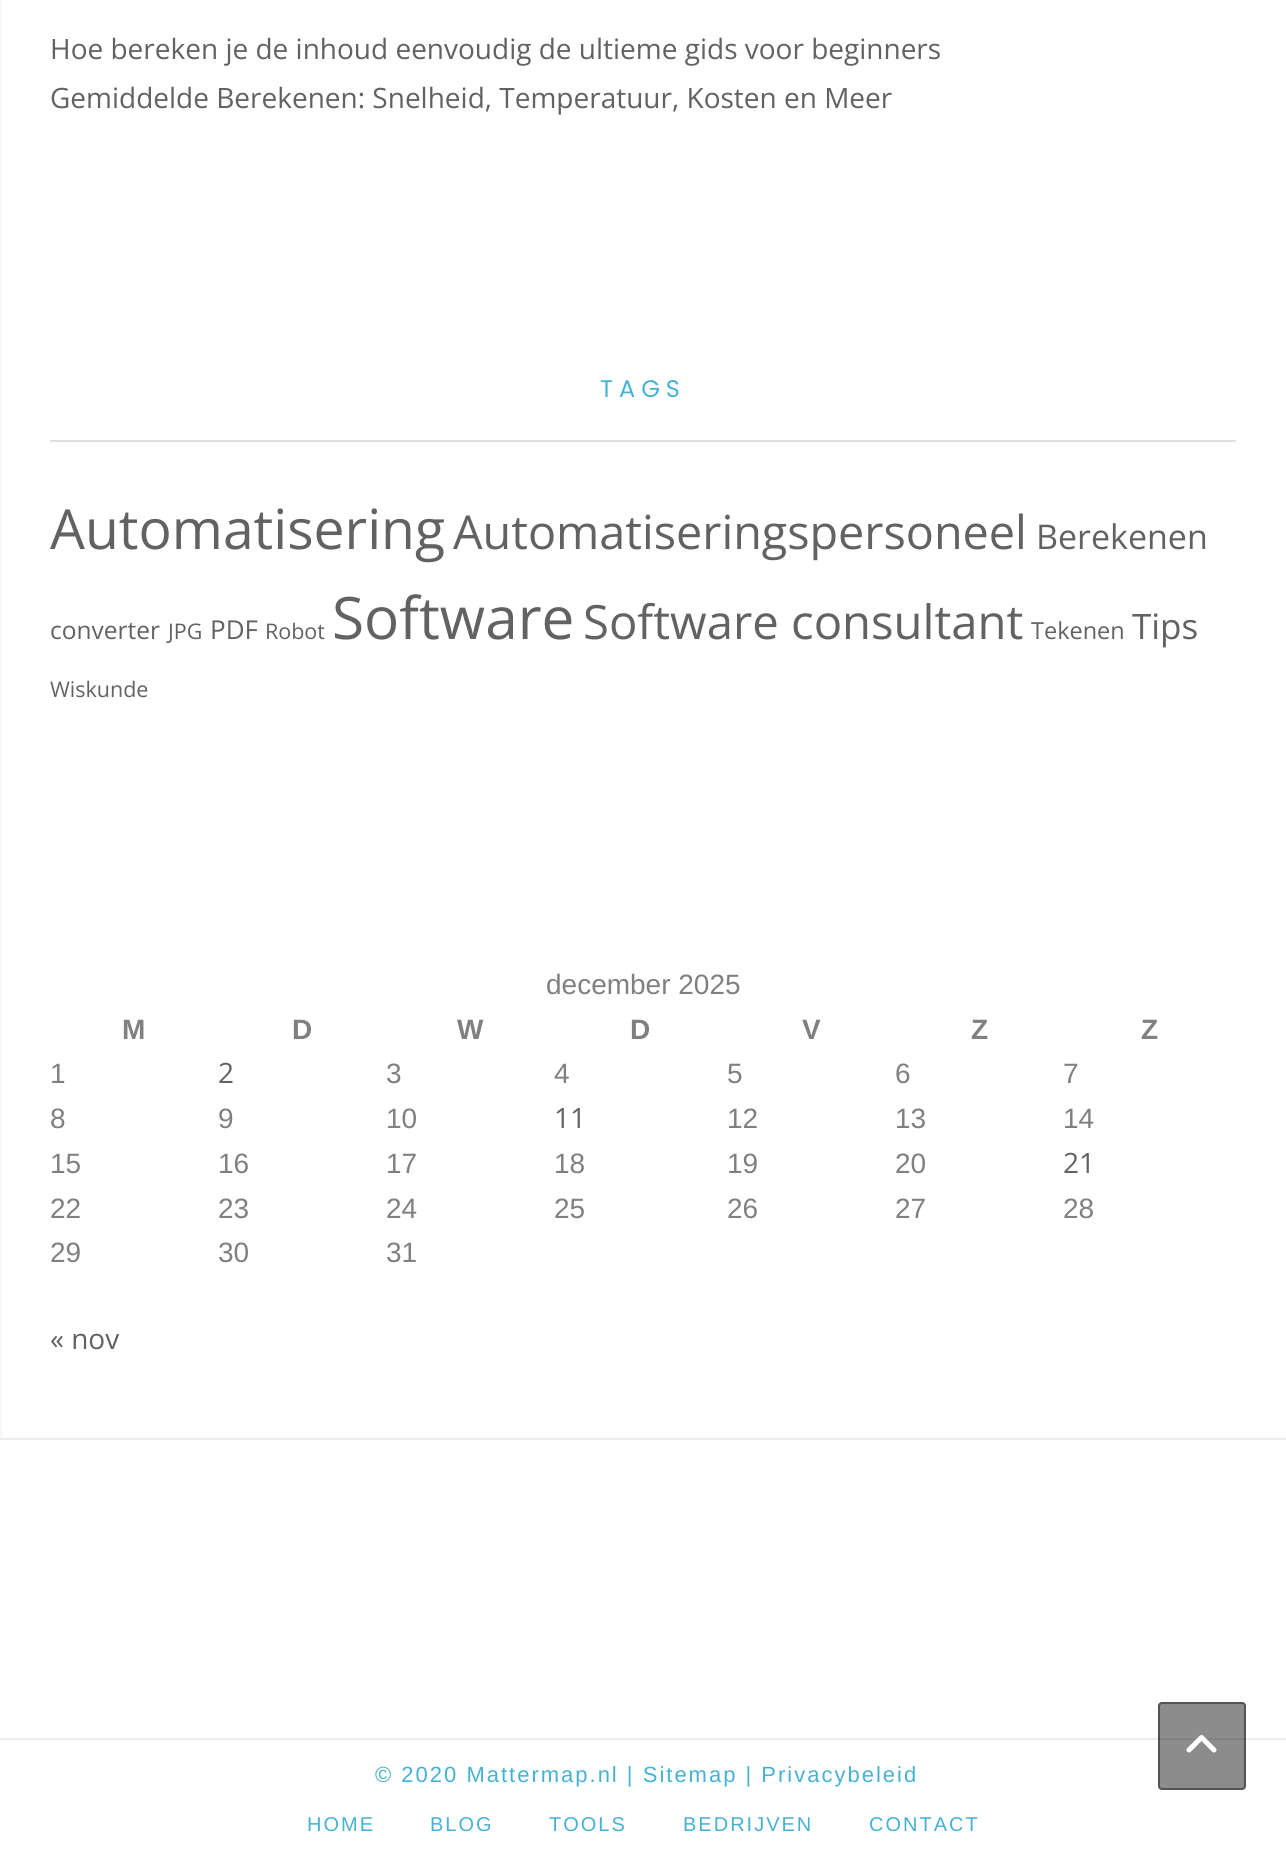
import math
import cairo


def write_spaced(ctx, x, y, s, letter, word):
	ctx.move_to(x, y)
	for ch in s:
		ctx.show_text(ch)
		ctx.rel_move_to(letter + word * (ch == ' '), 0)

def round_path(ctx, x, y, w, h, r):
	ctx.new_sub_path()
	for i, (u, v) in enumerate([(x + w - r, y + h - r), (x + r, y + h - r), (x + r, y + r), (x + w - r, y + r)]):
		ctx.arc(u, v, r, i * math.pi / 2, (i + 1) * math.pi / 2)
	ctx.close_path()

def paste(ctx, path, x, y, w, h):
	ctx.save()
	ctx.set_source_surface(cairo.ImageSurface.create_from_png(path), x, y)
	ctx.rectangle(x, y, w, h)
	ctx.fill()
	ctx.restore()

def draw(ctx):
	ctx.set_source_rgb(1, 1, 1)
	ctx.paint()
	ctx.set_source_rgb(0.969, 0.969, 0.969)
	ctx.rectangle(0, 0, 2, 1438)
	ctx.fill()
	ctx.select_font_face('Open Sans')
	ctx.set_font_size(28)
	ctx.set_source_rgb(0.388, 0.38, 0.38)
	ctx.move_to(50, 59)
	ctx.show_text('Hoe bereken je de inhoud eenvoudig de ultieme gids voor beginners')
	ctx.move_to(50, 108)
	ctx.show_text('Gemiddelde Berekenen: Snelheid, Temperatuur, Kosten en Meer')
	ctx.set_source_rgb(0.878, 0.878, 0.878)
	ctx.rectangle(50, 440, 1186, 2)
	ctx.fill()
	ctx.select_font_face('Poppins')
	ctx.set_font_size(24)
	ctx.set_source_rgb(0.275, 0.698, 0.827)
	write_spaced(ctx, 600, 397, 'TAGS', 6, 0)
	ctx.select_font_face('Open Sans')
	ctx.set_font_size(55.25)
	ctx.set_source_rgb(0.388, 0.38, 0.38)
	ctx.move_to(50, 549)
	ctx.show_text('Automatisering')
	ctx.set_font_size(46.75)
	ctx.move_to(453, 549)
	ctx.show_text('Automatiseringspersoneel')
	ctx.set_font_size(34)
	ctx.move_to(1036, 549)
	ctx.show_text('Berekenen')
	ctx.set_font_size(24.5)
	ctx.move_to(50, 639)
	ctx.show_text('converter')
	ctx.set_font_size(21.5)
	ctx.move_to(168, 639)
	ctx.show_text('JPG')
	ctx.set_font_size(26)
	ctx.move_to(210, 639)
	ctx.show_text('PDF')
	ctx.set_font_size(21.5)
	ctx.move_to(265, 639)
	ctx.show_text('Robot')
	ctx.set_font_size(58.5)
	ctx.move_to(332, 639)
	ctx.show_text('Software')
	ctx.set_font_size(47.25)
	ctx.move_to(583, 639)
	ctx.show_text('Software consultant')
	ctx.set_font_size(23.5)
	ctx.move_to(1031, 639)
	ctx.show_text('Tekenen')
	ctx.set_font_size(35)
	ctx.move_to(1132, 639)
	ctx.show_text('Tips')
	ctx.set_font_size(21.5)
	ctx.move_to(50, 697)
	ctx.show_text('Wiskunde')
	ctx.select_font_face('Liberation Sans')
	ctx.set_font_size(28)
	ctx.set_source_rgb(0.502, 0.502, 0.502)
	ctx.move_to(546, 994)
	ctx.show_text('december 2025')
	ctx.select_font_face('Liberation Sans', cairo.FONT_SLANT_NORMAL, cairo.FONT_WEIGHT_BOLD)
	for x, y, s in [
		(122, 1039, 'M'),
		(292, 1039, 'D'),
		(457, 1039, 'W'),
		(630, 1039, 'D'),
		(802, 1039, 'V'),
		(971, 1039, 'Z'),
		(1141, 1039, 'Z'),
	]:
		ctx.move_to(x, y)
		ctx.show_text(s)
	ctx.select_font_face('Liberation Sans')
	ctx.move_to(50, 1083)
	ctx.show_text('1')
	ctx.select_font_face('Open Sans')
	ctx.set_source_rgb(0.388, 0.38, 0.38)
	ctx.move_to(218, 1083)
	ctx.show_text('2')
	ctx.select_font_face('Liberation Sans')
	ctx.set_source_rgb(0.502, 0.502, 0.502)
	for x, y, s in [
		(386, 1083, '3'),
		(554, 1083, '4'),
		(727, 1083, '5'),
		(895, 1083, '6'),
		(1063, 1083, '7'),
		(50, 1128, '8'),
		(218, 1128, '9'),
		(386, 1128, '10'),
	]:
		ctx.move_to(x, y)
		ctx.show_text(s)
	ctx.select_font_face('Open Sans')
	ctx.set_source_rgb(0.388, 0.38, 0.38)
	ctx.move_to(554, 1128)
	ctx.show_text('11')
	ctx.select_font_face('Liberation Sans')
	ctx.set_source_rgb(0.502, 0.502, 0.502)
	for x, y, s in [
		(727, 1128, '12'),
		(895, 1128, '13'),
		(1063, 1128, '14'),
		(50, 1173, '15'),
		(218, 1173, '16'),
		(386, 1173, '17'),
		(554, 1173, '18'),
		(727, 1173, '19'),
		(895, 1173, '20'),
	]:
		ctx.move_to(x, y)
		ctx.show_text(s)
	ctx.select_font_face('Open Sans')
	ctx.set_source_rgb(0.388, 0.38, 0.38)
	ctx.move_to(1063, 1173)
	ctx.show_text('21')
	ctx.select_font_face('Liberation Sans')
	ctx.set_source_rgb(0.502, 0.502, 0.502)
	for x, y, s in [
		(50, 1218, '22'),
		(218, 1218, '23'),
		(386, 1218, '24'),
		(554, 1218, '25'),
		(727, 1218, '26'),
		(895, 1218, '27'),
		(1063, 1218, '28'),
		(50, 1262, '29'),
		(218, 1262, '30'),
		(386, 1262, '31'),
	]:
		ctx.move_to(x, y)
		ctx.show_text(s)
	ctx.select_font_face('Open Sans')
	ctx.set_source_rgb(0.388, 0.38, 0.38)
	ctx.move_to(50, 1349)
	ctx.show_text('« nov')
	ctx.set_source_rgb(0.922, 0.922, 0.922)
	ctx.rectangle(0, 1438, 1286, 2)
	ctx.fill()
	ctx.rectangle(0, 1738, 1286, 2)
	ctx.fill()
	ctx.select_font_face('Liberation Sans')
	ctx.set_font_size(22)
	ctx.set_source_rgb(0.275, 0.698, 0.827)
	write_spaced(ctx, 375, 1782, '© 2020 Mattermap.nl | Sitemap | Privacybeleid', 2, 0)
	ctx.set_font_size(20)
	for x, y, s in [
		(307, 1831, 'HOME'),
		(430, 1831, 'BLOG'),
		(549, 1831, 'TOOLS'),
		(683, 1831, 'BEDRIJVEN'),
		(869, 1831, 'CONTACT'),
	]:
		write_spaced(ctx, x, y, s, 2, 0)
	ctx.set_source_rgba(0, 0, 0, 0.45)
	round_path(ctx, 1158, 1702, 88, 88, 4)
	ctx.fill()
	round_path(ctx, 1159, 1703, 86, 86, 3)
	ctx.set_source_rgba(0, 0, 0, 0.4)
	ctx.stroke()
	paste(ctx, 'media/1.png', 1186, 1735, 31, 18)


surface = cairo.ImageSurface(cairo.FORMAT_RGB24, 1286, 1870)
ctx = cairo.Context(surface)
options = cairo.FontOptions()
options.set_hint_metrics(cairo.HINT_METRICS_OFF)
options.set_hint_style(cairo.HINT_STYLE_NONE)
ctx.set_font_options(options)
ctx.set_miter_limit(4)
draw(ctx)
surface.write_to_png('image.png')
